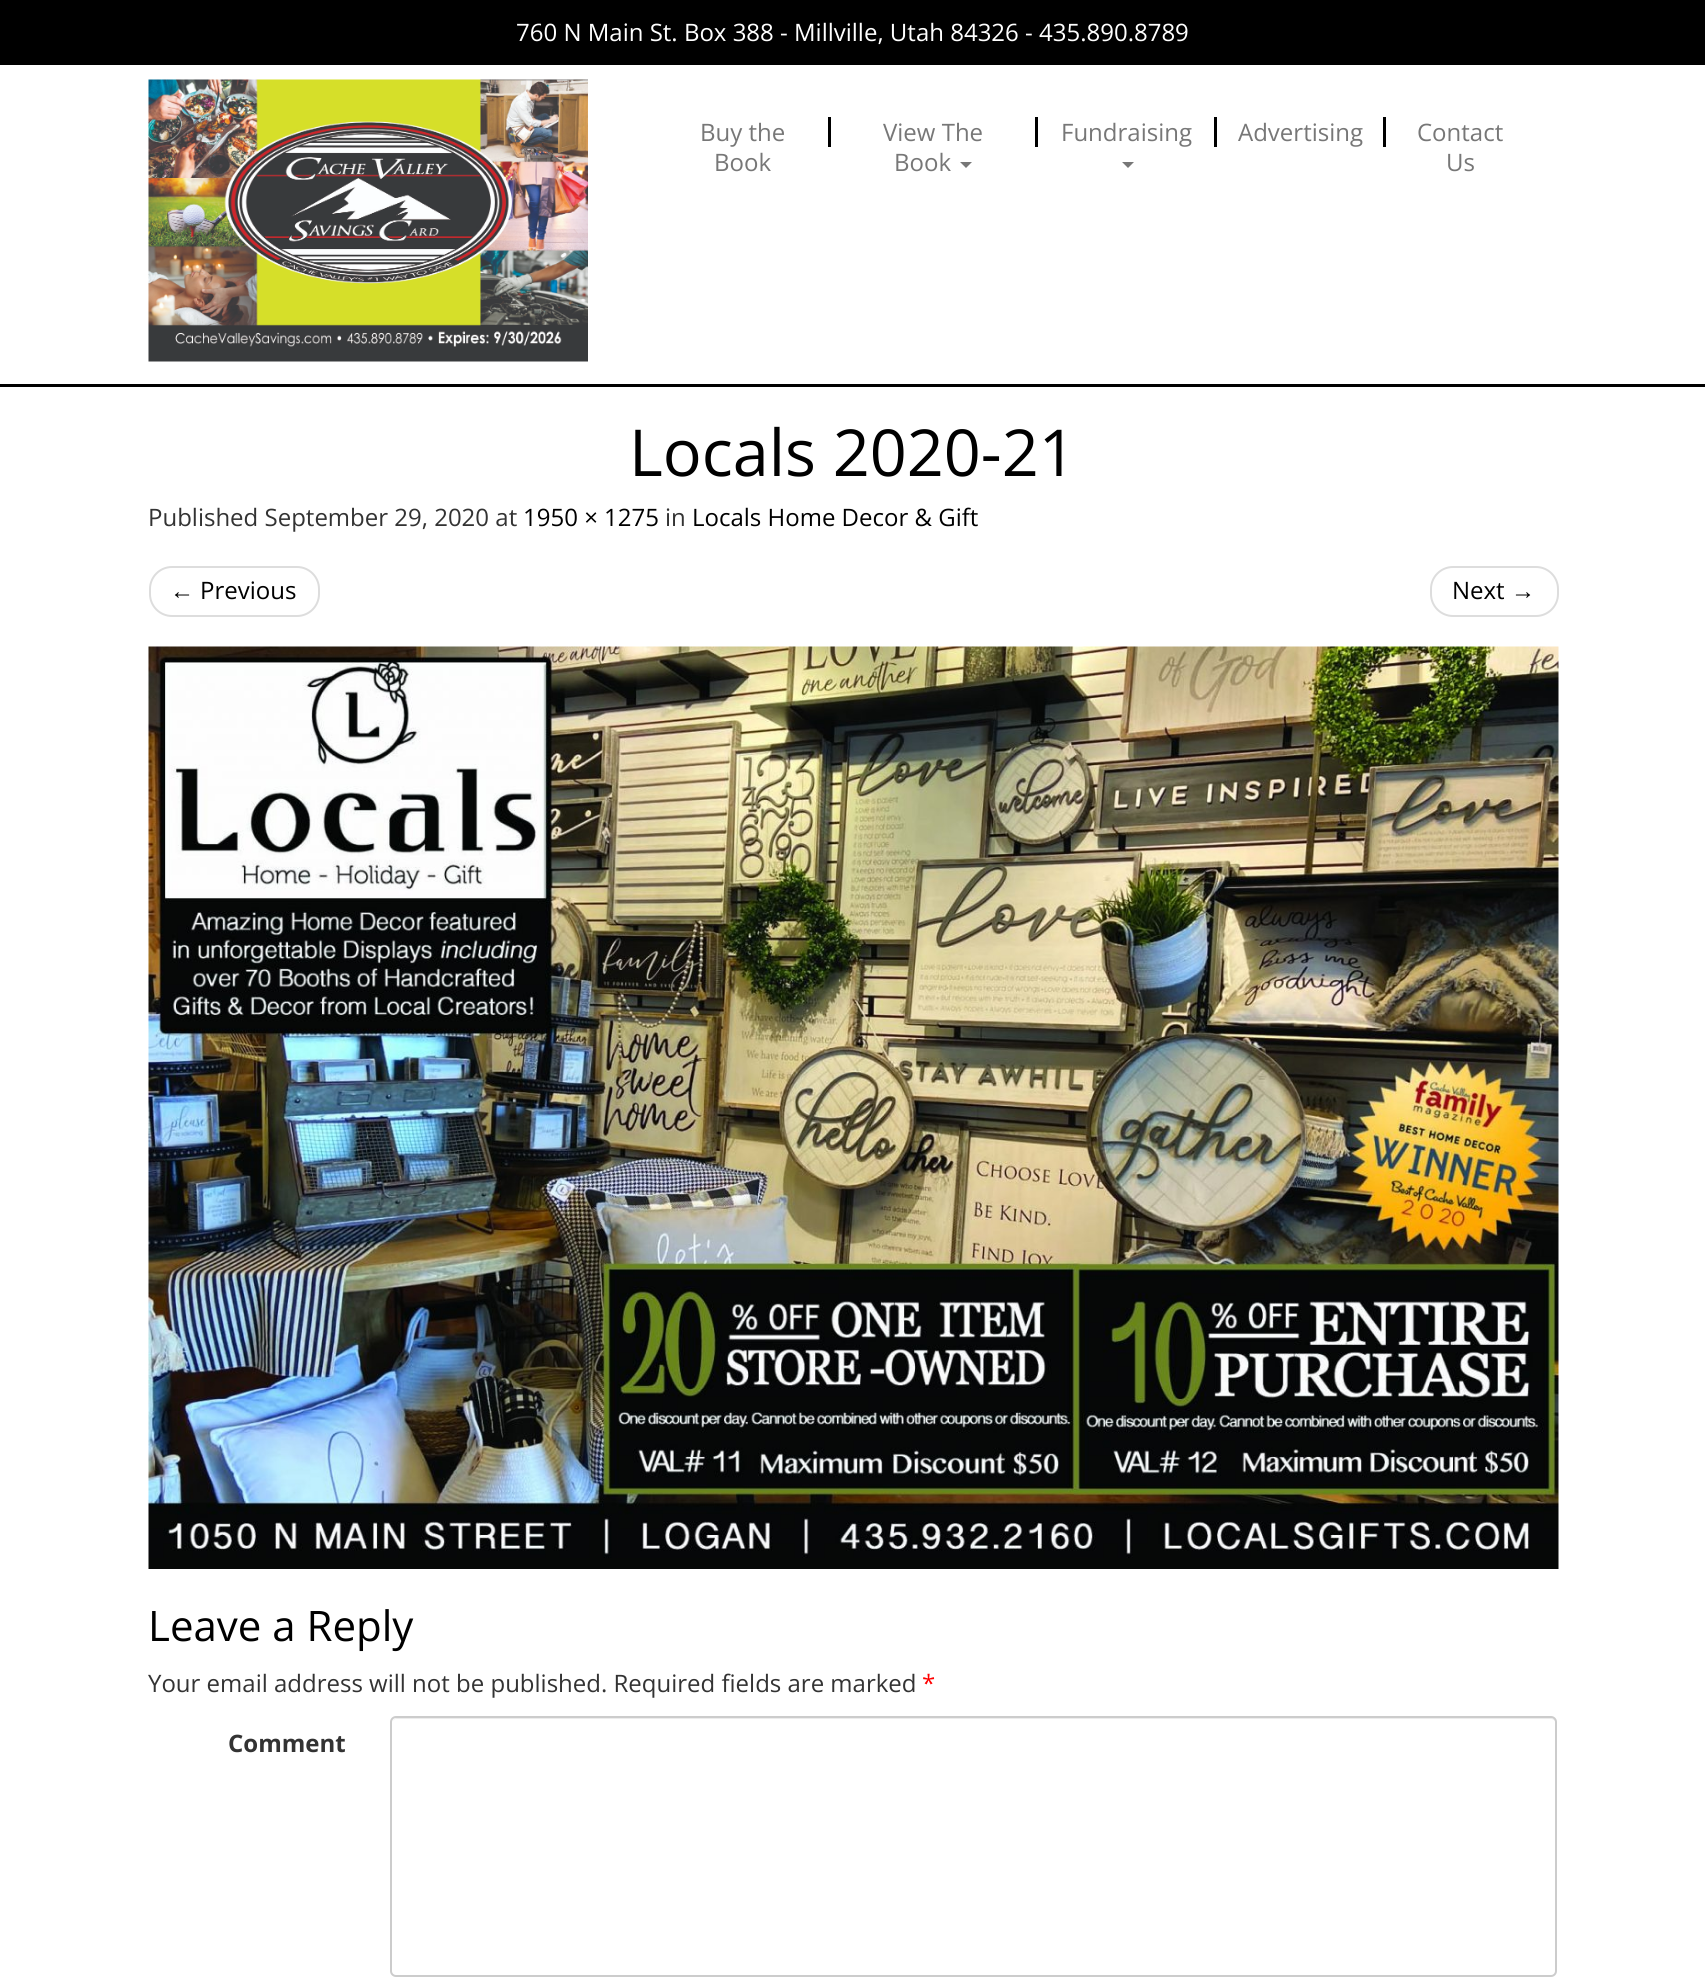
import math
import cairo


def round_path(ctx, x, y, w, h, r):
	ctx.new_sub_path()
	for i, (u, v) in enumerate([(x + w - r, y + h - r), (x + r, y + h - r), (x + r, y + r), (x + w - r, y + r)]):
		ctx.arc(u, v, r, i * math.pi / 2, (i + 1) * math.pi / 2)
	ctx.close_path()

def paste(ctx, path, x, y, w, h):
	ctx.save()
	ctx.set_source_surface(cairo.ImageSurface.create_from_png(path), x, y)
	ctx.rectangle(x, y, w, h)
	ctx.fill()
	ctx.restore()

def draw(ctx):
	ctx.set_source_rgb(1, 1, 1)
	ctx.paint()
	ctx.set_source_rgb(0, 0, 0)
	ctx.rectangle(0, 384, 1705, 3)
	ctx.fill()
	ctx.rectangle(0, 0, 1705, 65)
	ctx.fill()
	ctx.select_font_face('Open Sans')
	ctx.set_font_size(24)
	ctx.set_source_rgb(1, 1, 1)
	ctx.move_to(516, 41)
	ctx.show_text('760 N Main St. Box 388 - Millville, Utah 84326 - 435.890.8789')
	paste(ctx, 'media/1.png', 148, 79, 440, 283)
	ctx.set_source_rgb(0.467, 0.467, 0.467)
	ctx.move_to(700, 141)
	ctx.show_text('Buy the')
	ctx.move_to(714, 171)
	ctx.show_text('Book')
	ctx.set_source_rgb(0, 0, 0)
	ctx.rectangle(828, 117, 3, 30)
	ctx.fill()
	ctx.set_source_rgb(0.467, 0.467, 0.467)
	ctx.move_to(883, 141)
	ctx.show_text('View The')
	ctx.move_to(894, 171)
	ctx.show_text('Book')
	ctx.new_path()
	ctx.move_to(960, 162)
	ctx.line_to(972, 162)
	ctx.line_to(966, 168)
	ctx.close_path()
	ctx.fill()
	ctx.set_source_rgb(0, 0, 0)
	ctx.rectangle(1035, 117, 3, 30)
	ctx.fill()
	ctx.set_source_rgb(0.467, 0.467, 0.467)
	ctx.move_to(1061, 141)
	ctx.show_text('Fundraising')
	ctx.new_path()
	ctx.move_to(1122, 162)
	ctx.line_to(1134, 162)
	ctx.line_to(1128, 168)
	ctx.close_path()
	ctx.fill()
	ctx.set_source_rgb(0, 0, 0)
	ctx.rectangle(1214, 117, 3, 30)
	ctx.fill()
	ctx.set_source_rgb(0.467, 0.467, 0.467)
	ctx.move_to(1238, 141)
	ctx.show_text('Advertising')
	ctx.set_source_rgb(0, 0, 0)
	ctx.rectangle(1383, 117, 3, 30)
	ctx.fill()
	ctx.set_source_rgb(0.467, 0.467, 0.467)
	ctx.move_to(1417, 141)
	ctx.show_text('Contact')
	ctx.move_to(1446, 171)
	ctx.show_text('Us')
	ctx.set_font_size(64.75)
	ctx.set_source_rgb(0, 0, 0)
	ctx.move_to(629, 476)
	ctx.show_text('Locals 2020-21')
	ctx.set_font_size(24)
	ctx.set_source_rgb(0.2, 0.2, 0.2)
	ctx.move_to(148, 526)
	ctx.show_text('Published September 29, 2020 at')
	ctx.set_source_rgb(0, 0, 0)
	ctx.move_to(523, 526)
	ctx.show_text('1950 × 1275')
	ctx.set_source_rgb(0.2, 0.2, 0.2)
	ctx.move_to(665, 526)
	ctx.show_text('in')
	ctx.set_source_rgb(0, 0, 0)
	ctx.move_to(692, 526)
	ctx.show_text('Locals Home Decor & Gift')
	round_path(ctx, 150, 567, 169, 49, 22)
	ctx.set_source_rgb(0.867, 0.867, 0.867)
	ctx.stroke()
	ctx.select_font_face('Liberation Sans')
	ctx.set_source_rgb(0, 0, 0)
	ctx.move_to(170, 599)
	ctx.show_text('←')
	ctx.select_font_face('Open Sans')
	ctx.move_to(200, 599)
	ctx.show_text('Previous')
	round_path(ctx, 1431, 567, 127, 49, 22)
	ctx.set_source_rgb(0.867, 0.867, 0.867)
	ctx.stroke()
	ctx.set_source_rgb(0, 0, 0)
	ctx.move_to(1452, 599)
	ctx.show_text('Next')
	ctx.select_font_face('Liberation Sans')
	ctx.move_to(1511, 599)
	ctx.show_text('→')
	paste(ctx, 'media/2.png', 148, 646, 1411, 923)
	ctx.select_font_face('Open Sans')
	ctx.set_font_size(42)
	ctx.move_to(148, 1641)
	ctx.show_text('Leave a Reply')
	ctx.set_font_size(24)
	ctx.set_source_rgb(0.2, 0.2, 0.2)
	ctx.move_to(148, 1692)
	ctx.show_text('Your email address will not be published. Required fields are marked')
	ctx.set_source_rgb(1, 0, 0)
	ctx.move_to(922, 1692)
	ctx.show_text('*')
	ctx.select_font_face('Open Sans', cairo.FONT_SLANT_NORMAL, cairo.FONT_WEIGHT_BOLD)
	ctx.set_source_rgb(0.2, 0.2, 0.2)
	ctx.move_to(228, 1752)
	ctx.show_text('Comment')
	ctx.set_source_rgb(0.925, 0.925, 0.925)
	ctx.new_path()
	ctx.move_to(396, 1719)
	ctx.line_to(1551, 1719)
	ctx.curve_to(1553, 1719, 1556, 1721, 1556, 1724)
	ctx.curve_to(1556, 1721, 1554, 1718, 1551, 1718)
	ctx.line_to(397, 1718)
	ctx.curve_to(394, 1718, 392, 1721, 392, 1724)
	ctx.curve_to(392, 1721, 394, 1719, 396, 1719)
	ctx.close_path()
	ctx.fill()
	round_path(ctx, 391, 1717, 1165, 259, 5)
	ctx.set_source_rgb(0.8, 0.8, 0.8)
	ctx.stroke()


surface = cairo.ImageSurface(cairo.FORMAT_RGB24, 1705, 1978)
ctx = cairo.Context(surface)
options = cairo.FontOptions()
options.set_hint_metrics(cairo.HINT_METRICS_OFF)
options.set_hint_style(cairo.HINT_STYLE_NONE)
ctx.set_font_options(options)
ctx.set_miter_limit(4)
draw(ctx)
surface.write_to_png('image.png')
